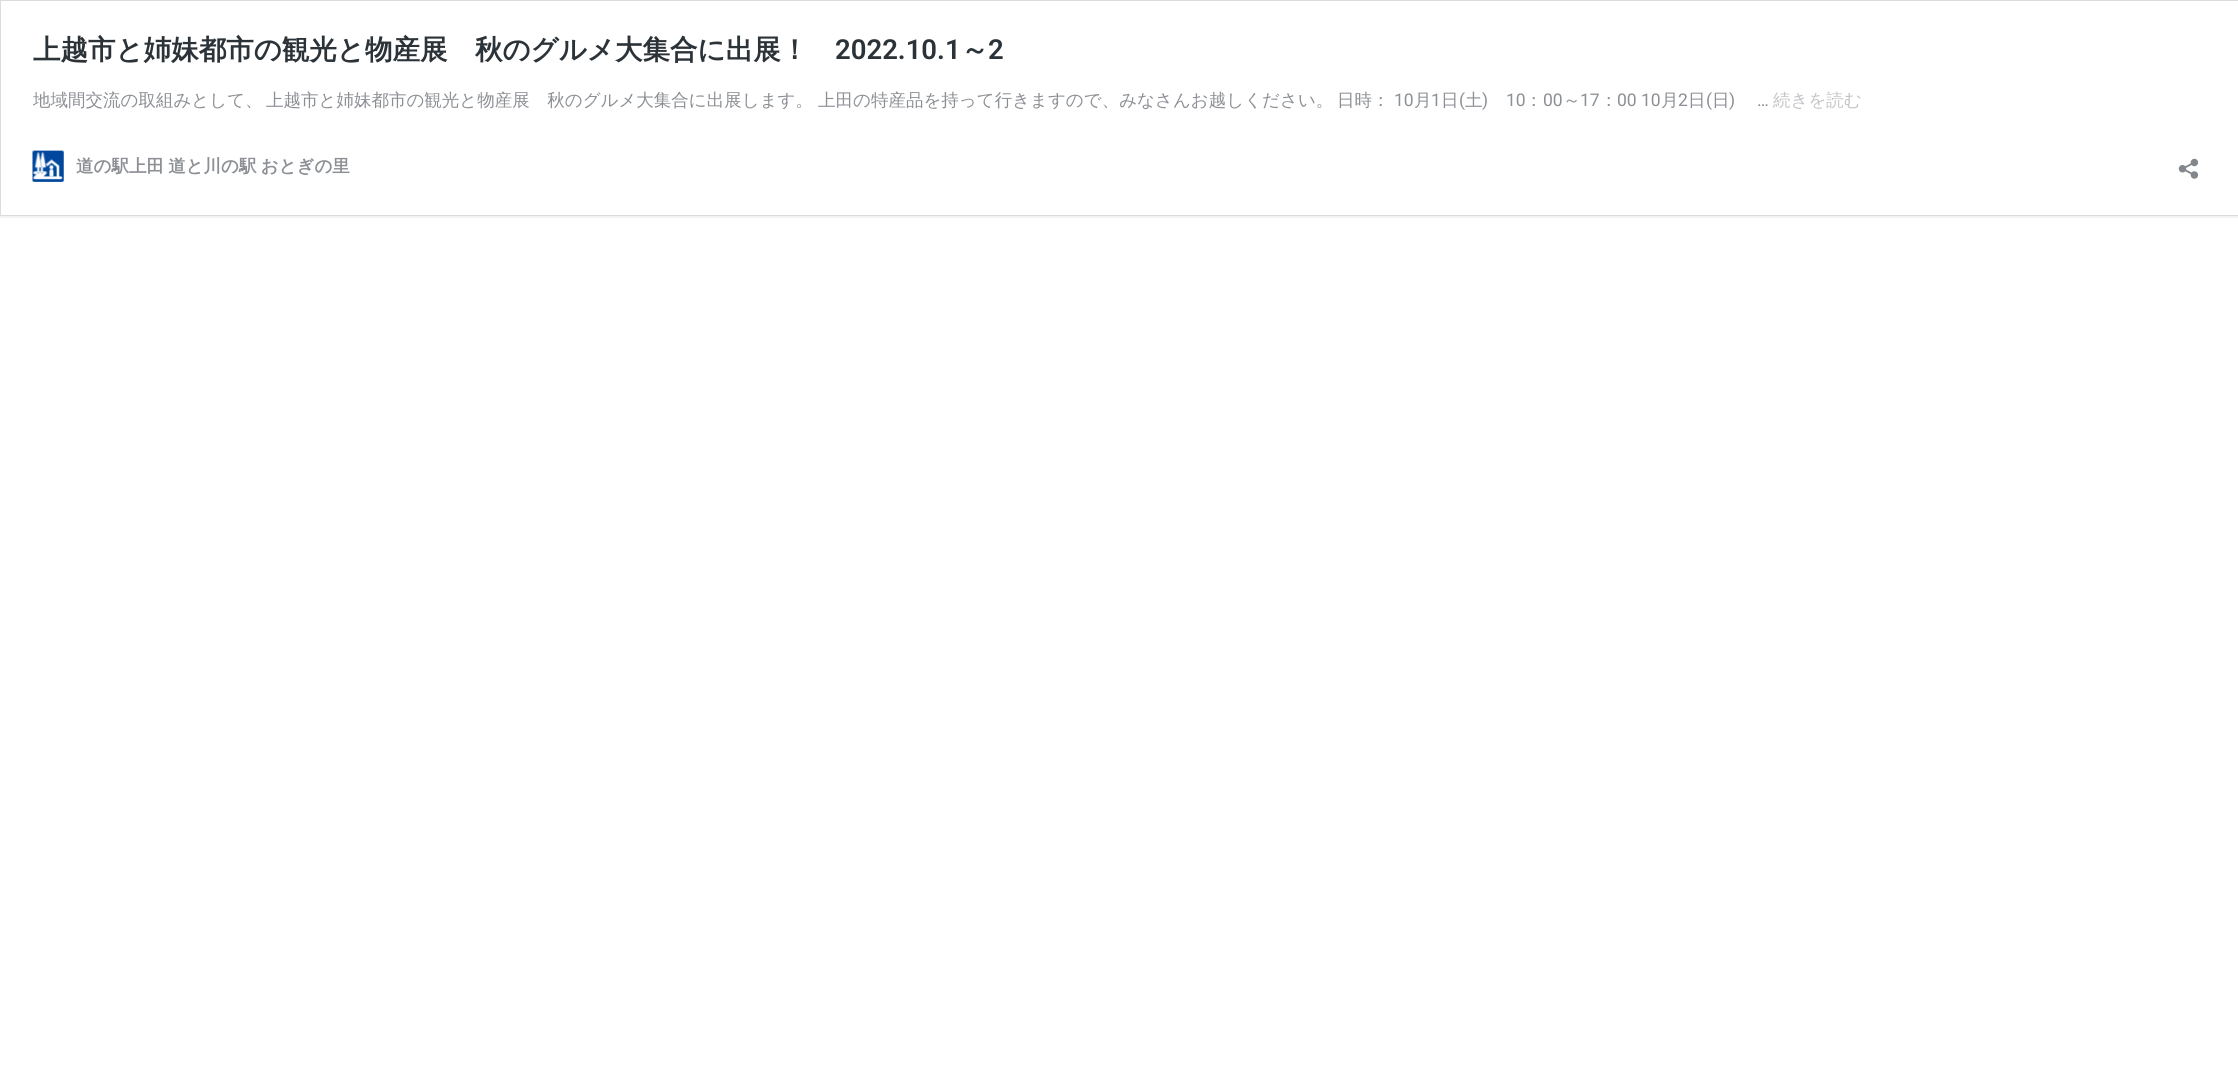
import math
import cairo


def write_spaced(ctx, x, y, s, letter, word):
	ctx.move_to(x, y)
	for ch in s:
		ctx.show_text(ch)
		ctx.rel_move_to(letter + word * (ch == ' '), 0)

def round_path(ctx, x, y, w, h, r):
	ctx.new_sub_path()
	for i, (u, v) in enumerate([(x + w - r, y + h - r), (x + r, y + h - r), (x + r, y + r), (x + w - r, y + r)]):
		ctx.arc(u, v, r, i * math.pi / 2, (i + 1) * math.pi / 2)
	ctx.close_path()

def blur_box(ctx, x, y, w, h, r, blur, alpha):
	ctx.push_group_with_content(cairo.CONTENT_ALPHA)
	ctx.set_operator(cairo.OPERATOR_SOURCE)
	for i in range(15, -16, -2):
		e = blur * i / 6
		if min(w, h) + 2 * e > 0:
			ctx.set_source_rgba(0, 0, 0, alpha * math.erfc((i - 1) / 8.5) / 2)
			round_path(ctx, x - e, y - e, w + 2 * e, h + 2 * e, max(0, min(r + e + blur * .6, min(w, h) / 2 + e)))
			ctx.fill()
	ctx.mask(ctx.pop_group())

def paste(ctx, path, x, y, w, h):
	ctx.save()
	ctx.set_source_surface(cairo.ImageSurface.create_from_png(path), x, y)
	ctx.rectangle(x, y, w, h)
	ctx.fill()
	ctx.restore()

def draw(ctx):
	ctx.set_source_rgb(1, 1, 1)
	ctx.paint()
	ctx.save()
	ctx.rectangle(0, 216, 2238, 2)
	ctx.clip()
	ctx.set_source_rgb(0, 0, 0)
	blur_box(ctx, 0, 1, 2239, 217, 0, 0.5, 0.05)
	ctx.restore()
	ctx.rectangle(0.5, 0.5, 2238, 215)
	ctx.set_source_rgb(0.863, 0.863, 0.871)
	ctx.set_line_width(1)
	ctx.stroke()
	ctx.select_font_face('WenQuanYi Zen Hei', cairo.FONT_SLANT_NORMAL, cairo.FONT_WEIGHT_BOLD)
	ctx.set_font_size(27.5)
	ctx.set_source_rgb(0.173, 0.2, 0.22)
	ctx.move_to(33, 59)
	ctx.show_text('上越市と姉妹都市の観光と物産展　秋のグルメ大集合に出展！')
	ctx.select_font_face('Roboto SemiBold')
	ctx.move_to(835, 59)
	ctx.show_text('2022.10.1')
	ctx.select_font_face('WenQuanYi Zen Hei', cairo.FONT_SLANT_NORMAL, cairo.FONT_WEIGHT_BOLD)
	ctx.move_to(961, 59)
	ctx.show_text('～')
	ctx.select_font_face('Roboto SemiBold')
	ctx.move_to(988, 59)
	ctx.show_text('2')
	ctx.select_font_face('WenQuanYi Zen Hei Medium')
	ctx.set_font_size(17.5)
	ctx.set_source_rgb(0.549, 0.561, 0.58)
	for x, y, s in [
		(33, 106, '地域間交流の取組みとして、'),
		(266, 106, '上越市と姉妹都市の観光と物産展　秋のグルメ大集合に出展します。'),
		(818, 106, '上田の特産品を持って行きますので、みなさんお越しください。'),
		(1337, 106, '日時：'),
	]:
		ctx.move_to(x, y)
		ctx.show_text(s)
	ctx.select_font_face('Roboto')
	ctx.move_to(1394, 106)
	ctx.show_text('10')
	ctx.select_font_face('WenQuanYi Zen Hei Medium')
	ctx.move_to(1414, 106)
	ctx.show_text('月')
	ctx.select_font_face('Roboto')
	ctx.move_to(1431, 106)
	ctx.show_text('1')
	ctx.select_font_face('WenQuanYi Zen Hei Medium')
	ctx.move_to(1441, 106)
	ctx.show_text('日')
	ctx.select_font_face('Roboto')
	ctx.move_to(1459, 106)
	ctx.show_text('(')
	ctx.select_font_face('WenQuanYi Zen Hei Medium')
	ctx.move_to(1465, 106)
	ctx.show_text('土')
	ctx.select_font_face('Roboto')
	ctx.move_to(1482, 106)
	ctx.show_text(')')
	ctx.move_to(1506, 106)
	ctx.show_text('10')
	ctx.select_font_face('WenQuanYi Zen Hei Medium')
	ctx.move_to(1525, 106)
	ctx.show_text('：')
	ctx.select_font_face('Roboto')
	ctx.move_to(1543, 106)
	ctx.show_text('00')
	ctx.select_font_face('WenQuanYi Zen Hei Medium')
	ctx.move_to(1563, 106)
	ctx.show_text('～')
	ctx.select_font_face('Roboto')
	ctx.move_to(1580, 106)
	ctx.show_text('17')
	ctx.select_font_face('WenQuanYi Zen Hei Medium')
	ctx.move_to(1600, 106)
	ctx.show_text('：')
	ctx.select_font_face('Roboto')
	ctx.move_to(1617, 106)
	ctx.show_text('00 10')
	ctx.select_font_face('WenQuanYi Zen Hei Medium')
	ctx.move_to(1661, 106)
	ctx.show_text('月')
	ctx.select_font_face('Roboto')
	ctx.move_to(1678, 106)
	ctx.show_text('2')
	ctx.select_font_face('WenQuanYi Zen Hei Medium')
	ctx.move_to(1688, 106)
	ctx.show_text('日')
	ctx.select_font_face('Roboto')
	ctx.move_to(1706, 106)
	ctx.show_text('(')
	ctx.select_font_face('WenQuanYi Zen Hei Medium')
	ctx.move_to(1712, 106)
	ctx.show_text('日')
	ctx.select_font_face('Roboto')
	ctx.move_to(1729, 106)
	ctx.show_text(')')
	ctx.select_font_face('WenQuanYi Zen Hei Medium')
	ctx.set_source_rgb(0.765, 0.769, 0.78)
	ctx.move_to(1773, 106)
	ctx.show_text('続きを読む')
	ctx.select_font_face('Roboto')
	ctx.set_source_rgb(0.549, 0.561, 0.58)
	ctx.move_to(1757, 106)
	ctx.show_text('…')
	paste(ctx, 'media/1.png', 32, 150, 32, 32)
	ctx.select_font_face('WenQuanYi Zen Hei', cairo.FONT_SLANT_NORMAL, cairo.FONT_WEIGHT_BOLD)
	write_spaced(ctx, 76, 172, '道の駅上田 道と川の駅 おとぎの里', 0, -1)
	paste(ctx, 'media/2.png', 2178, 158, 21, 21)


surface = cairo.ImageSurface(cairo.FORMAT_RGB24, 2238, 1078)
ctx = cairo.Context(surface)
options = cairo.FontOptions()
options.set_hint_metrics(cairo.HINT_METRICS_OFF)
options.set_hint_style(cairo.HINT_STYLE_NONE)
ctx.set_font_options(options)
ctx.set_miter_limit(4)
draw(ctx)
surface.write_to_png('image.png')
